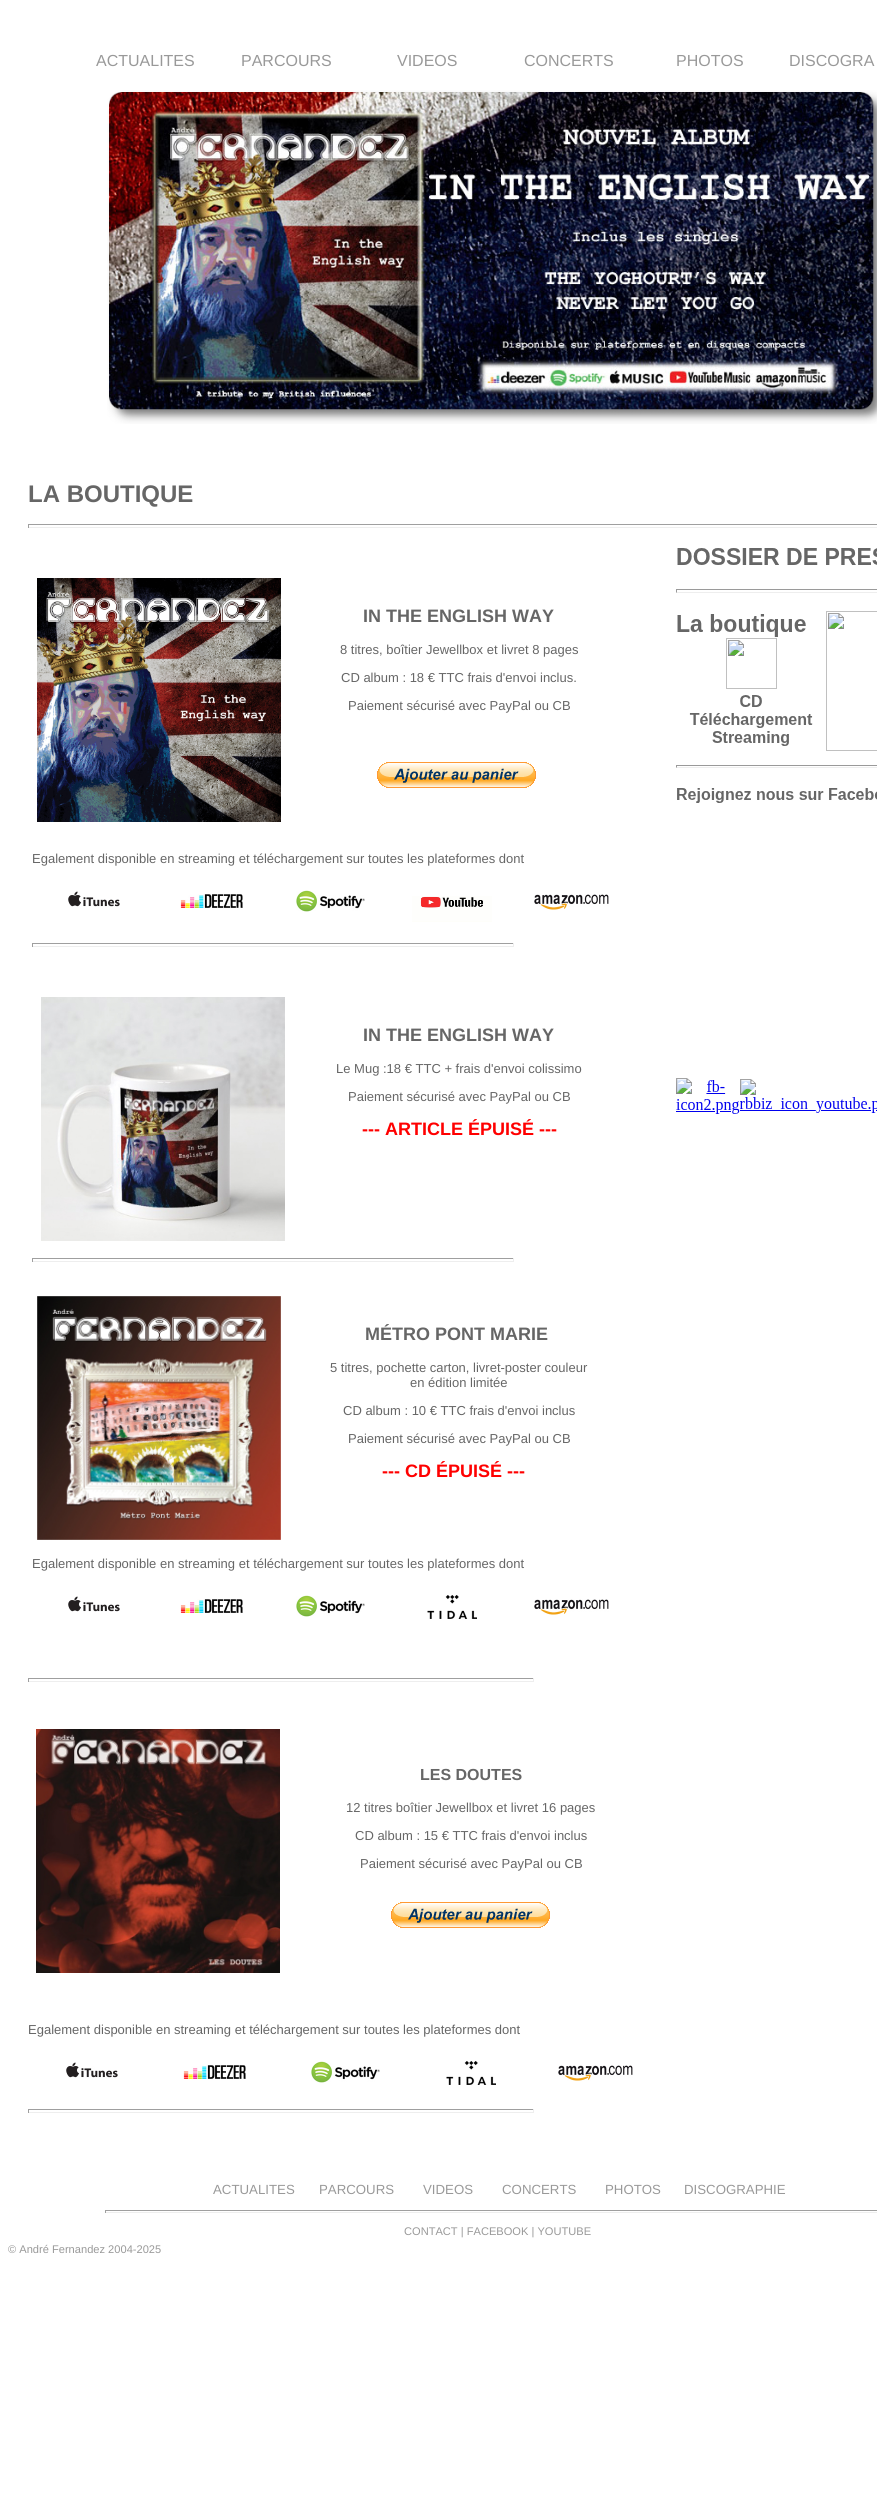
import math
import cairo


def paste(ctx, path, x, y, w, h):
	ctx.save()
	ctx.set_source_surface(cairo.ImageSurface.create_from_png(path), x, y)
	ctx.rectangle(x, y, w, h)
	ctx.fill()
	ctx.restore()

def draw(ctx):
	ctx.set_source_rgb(1, 1, 1)
	ctx.paint()
	ctx.select_font_face('Liberation Sans')
	ctx.set_font_size(16)
	ctx.set_source_rgb(0.6, 0.6, 0.6)
	for x, y, s in [
		(96, 66, 'ACTUALITES'),
		(241, 66, 'PARCOURS'),
		(397, 66, 'VIDEOS'),
		(524, 66, 'CONCERTS'),
		(676, 66, 'PHOTOS'),
		(789, 66, 'DISCOGRA'),
	]:
		ctx.move_to(x, y)
		ctx.show_text(s)
	paste(ctx, 'media/1.png', 107, 90, 770, 334)
	ctx.select_font_face('Liberation Sans', cairo.FONT_SLANT_NORMAL, cairo.FONT_WEIGHT_BOLD)
	ctx.set_font_size(24)
	ctx.set_source_rgb(0.4, 0.4, 0.4)
	ctx.move_to(28, 502)
	ctx.show_text('LA BOUTIQUE')
	ctx.set_source_rgb(0.624, 0.624, 0.624)
	ctx.rectangle(28, 524, 849, 1)
	ctx.fill()
	ctx.set_source_rgb(0.933, 0.933, 0.933)
	ctx.rectangle(28, 527, 849, 1)
	ctx.fill()
	ctx.set_source_rgb(0.624, 0.624, 0.624)
	ctx.rectangle(28, 524, 1, 4)
	ctx.fill()
	paste(ctx, 'media/2.png', 37, 578, 244, 244)
	ctx.set_font_size(18)
	ctx.set_source_rgb(0.4, 0.4, 0.4)
	ctx.move_to(363, 622)
	ctx.show_text('IN THE ENGLISH WAY')
	ctx.select_font_face('Liberation Sans')
	ctx.set_font_size(13)
	for x, y, s in [
		(340, 654, '8 titres, boîtier Jewellbox et livret 8 pages'),
		(341, 682, 'CD album : 18 € TTC frais d\'envoi inclus.'),
		(348, 710, 'Paiement sécurisé avec PayPal ou CB'),
	]:
		ctx.move_to(x, y)
		ctx.show_text(s)
	paste(ctx, 'media/3.png', 377, 762, 159, 26)
	ctx.move_to(32, 863)
	ctx.show_text('Egalement disponible en streaming et téléchargement sur toutes les plateformes dont')
	paste(ctx, 'media/4.png', 68, 891, 52, 16)
	paste(ctx, 'media/5.png', 180, 894, 63, 14)
	paste(ctx, 'media/6.png', 296, 890, 69, 22)
	paste(ctx, 'media/7.png', 412, 896, 80, 26)
	paste(ctx, 'media/8.png', 534, 894, 75, 16)
	ctx.set_source_rgb(0.624, 0.624, 0.624)
	ctx.rectangle(32, 943, 482, 1)
	ctx.fill()
	ctx.set_source_rgb(0.933, 0.933, 0.933)
	ctx.rectangle(513, 943, 1, 4)
	ctx.rectangle(32, 946, 482, 1)
	ctx.fill()
	ctx.set_source_rgb(0.624, 0.624, 0.624)
	ctx.rectangle(32, 943, 1, 4)
	ctx.fill()
	paste(ctx, 'media/9.png', 41, 997, 244, 244)
	ctx.select_font_face('Liberation Sans', cairo.FONT_SLANT_NORMAL, cairo.FONT_WEIGHT_BOLD)
	ctx.set_font_size(18)
	ctx.set_source_rgb(0.4, 0.4, 0.4)
	ctx.move_to(363, 1041)
	ctx.show_text('IN THE ENGLISH WAY')
	ctx.select_font_face('Liberation Sans')
	ctx.set_font_size(13)
	ctx.move_to(336, 1073)
	ctx.show_text('Le Mug :18 € TTC + frais d\'envoi colissimo')
	ctx.move_to(348, 1101)
	ctx.show_text('Paiement sécurisé avec PayPal ou CB')
	ctx.select_font_face('Liberation Sans', cairo.FONT_SLANT_NORMAL, cairo.FONT_WEIGHT_BOLD)
	ctx.set_font_size(18)
	ctx.set_source_rgb(1, 0, 0)
	ctx.move_to(362, 1135)
	ctx.show_text('--- ARTICLE ÉPUISÉ ---')
	ctx.set_source_rgb(0.624, 0.624, 0.624)
	ctx.rectangle(32, 1258, 482, 1)
	ctx.fill()
	ctx.set_source_rgb(0.933, 0.933, 0.933)
	ctx.rectangle(513, 1258, 1, 4)
	ctx.rectangle(32, 1261, 482, 1)
	ctx.fill()
	ctx.set_source_rgb(0.624, 0.624, 0.624)
	ctx.rectangle(32, 1258, 1, 4)
	ctx.fill()
	paste(ctx, 'media/10.png', 37, 1296, 244, 244)
	ctx.set_source_rgb(0.4, 0.4, 0.4)
	ctx.move_to(365, 1340)
	ctx.show_text('MÉTRO PONT MARIE')
	ctx.select_font_face('Liberation Sans')
	ctx.set_font_size(13)
	for x, y, s in [
		(330, 1372, '5 titres, pochette carton, livret-poster couleur'),
		(410, 1387, 'en édition limitée'),
		(343, 1415, 'CD album : 10 € TTC frais d\'envoi inclus'),
		(348, 1443, 'Paiement sécurisé avec PayPal ou CB'),
	]:
		ctx.move_to(x, y)
		ctx.show_text(s)
	ctx.select_font_face('Liberation Sans', cairo.FONT_SLANT_NORMAL, cairo.FONT_WEIGHT_BOLD)
	ctx.set_font_size(18)
	ctx.set_source_rgb(1, 0, 0)
	ctx.move_to(382, 1477)
	ctx.show_text('--- CD ÉPUISÉ ---')
	ctx.select_font_face('Liberation Sans')
	ctx.set_font_size(13)
	ctx.set_source_rgb(0.4, 0.4, 0.4)
	ctx.move_to(32, 1568)
	ctx.show_text('Egalement disponible en streaming et téléchargement sur toutes les plateformes dont')
	paste(ctx, 'media/4.png', 68, 1596, 52, 16)
	paste(ctx, 'media/5.png', 180, 1599, 63, 14)
	paste(ctx, 'media/6.png', 296, 1595, 69, 22)
	paste(ctx, 'media/11.png', 427, 1595, 50, 24)
	paste(ctx, 'media/8.png', 534, 1599, 75, 16)
	ctx.set_source_rgb(0.624, 0.624, 0.624)
	ctx.rectangle(28, 1678, 506, 1)
	ctx.fill()
	ctx.set_source_rgb(0.933, 0.933, 0.933)
	ctx.rectangle(533, 1678, 1, 4)
	ctx.rectangle(28, 1681, 506, 1)
	ctx.fill()
	ctx.set_source_rgb(0.624, 0.624, 0.624)
	ctx.rectangle(28, 1678, 1, 4)
	ctx.fill()
	paste(ctx, 'media/12.png', 36, 1729, 244, 244)
	ctx.select_font_face('Liberation Sans', cairo.FONT_SLANT_NORMAL, cairo.FONT_WEIGHT_BOLD)
	ctx.set_font_size(16)
	ctx.set_source_rgb(0.4, 0.4, 0.4)
	ctx.move_to(420, 1780)
	ctx.show_text('LES DOUTES')
	ctx.select_font_face('Liberation Sans')
	ctx.set_font_size(13)
	for x, y, s in [
		(346, 1812, '12 titres boîtier Jewellbox et livret 16 pages'),
		(355, 1840, 'CD album : 15 € TTC frais d\'envoi inclus'),
		(360, 1868, 'Paiement sécurisé avec PayPal ou CB'),
	]:
		ctx.move_to(x, y)
		ctx.show_text(s)
	paste(ctx, 'media/3.png', 391, 1902, 159, 26)
	ctx.move_to(28, 2034)
	ctx.show_text('Egalement disponible en streaming et téléchargement sur toutes les plateformes dont')
	paste(ctx, 'media/4.png', 66, 2062, 52, 16)
	paste(ctx, 'media/5.png', 183, 2065, 63, 14)
	paste(ctx, 'media/6.png', 311, 2061, 69, 22)
	paste(ctx, 'media/11.png', 446, 2061, 50, 24)
	paste(ctx, 'media/8.png', 558, 2065, 75, 16)
	ctx.set_source_rgb(0.624, 0.624, 0.624)
	ctx.rectangle(28, 2109, 506, 1)
	ctx.fill()
	ctx.set_source_rgb(0.933, 0.933, 0.933)
	ctx.rectangle(533, 2109, 1, 4)
	ctx.rectangle(28, 2112, 506, 1)
	ctx.fill()
	ctx.set_source_rgb(0.624, 0.624, 0.624)
	ctx.rectangle(28, 2109, 1, 4)
	ctx.fill()
	paste(ctx, 'media/13.png', 676, 548, 201, 566)
	ctx.set_font_size(13.25)
	ctx.set_source_rgb(0.6, 0.6, 0.6)
	for x, y, s in [
		(213, 2194, 'ACTUALITES'),
		(319, 2194, 'PARCOURS'),
		(423, 2194, 'VIDEOS'),
		(502, 2194, 'CONCERTS'),
		(605, 2194, 'PHOTOS'),
		(684, 2194, 'DISCOGRAPHIE'),
	]:
		ctx.move_to(x, y)
		ctx.show_text(s)
	ctx.set_source_rgb(0.624, 0.624, 0.624)
	ctx.rectangle(105, 2210, 772, 1)
	ctx.fill()
	ctx.set_source_rgb(0.933, 0.933, 0.933)
	ctx.rectangle(105, 2212, 772, 1)
	ctx.fill()
	ctx.set_source_rgb(0.624, 0.624, 0.624)
	ctx.rectangle(105, 2210, 1, 3)
	ctx.fill()
	ctx.set_font_size(11.1)
	ctx.set_source_rgb(0.6, 0.6, 0.6)
	ctx.move_to(404, 2235)
	ctx.show_text('CONTACT | FACEBOOK | YOUTUBE')
	ctx.move_to(8, 2253)
	ctx.show_text('© André Fernandez 2004-2025')


surface = cairo.ImageSurface(cairo.FORMAT_RGB24, 877, 2514)
ctx = cairo.Context(surface)
options = cairo.FontOptions()
options.set_hint_metrics(cairo.HINT_METRICS_OFF)
options.set_hint_style(cairo.HINT_STYLE_NONE)
ctx.set_font_options(options)
ctx.set_miter_limit(4)
draw(ctx)
surface.write_to_png('image.png')
